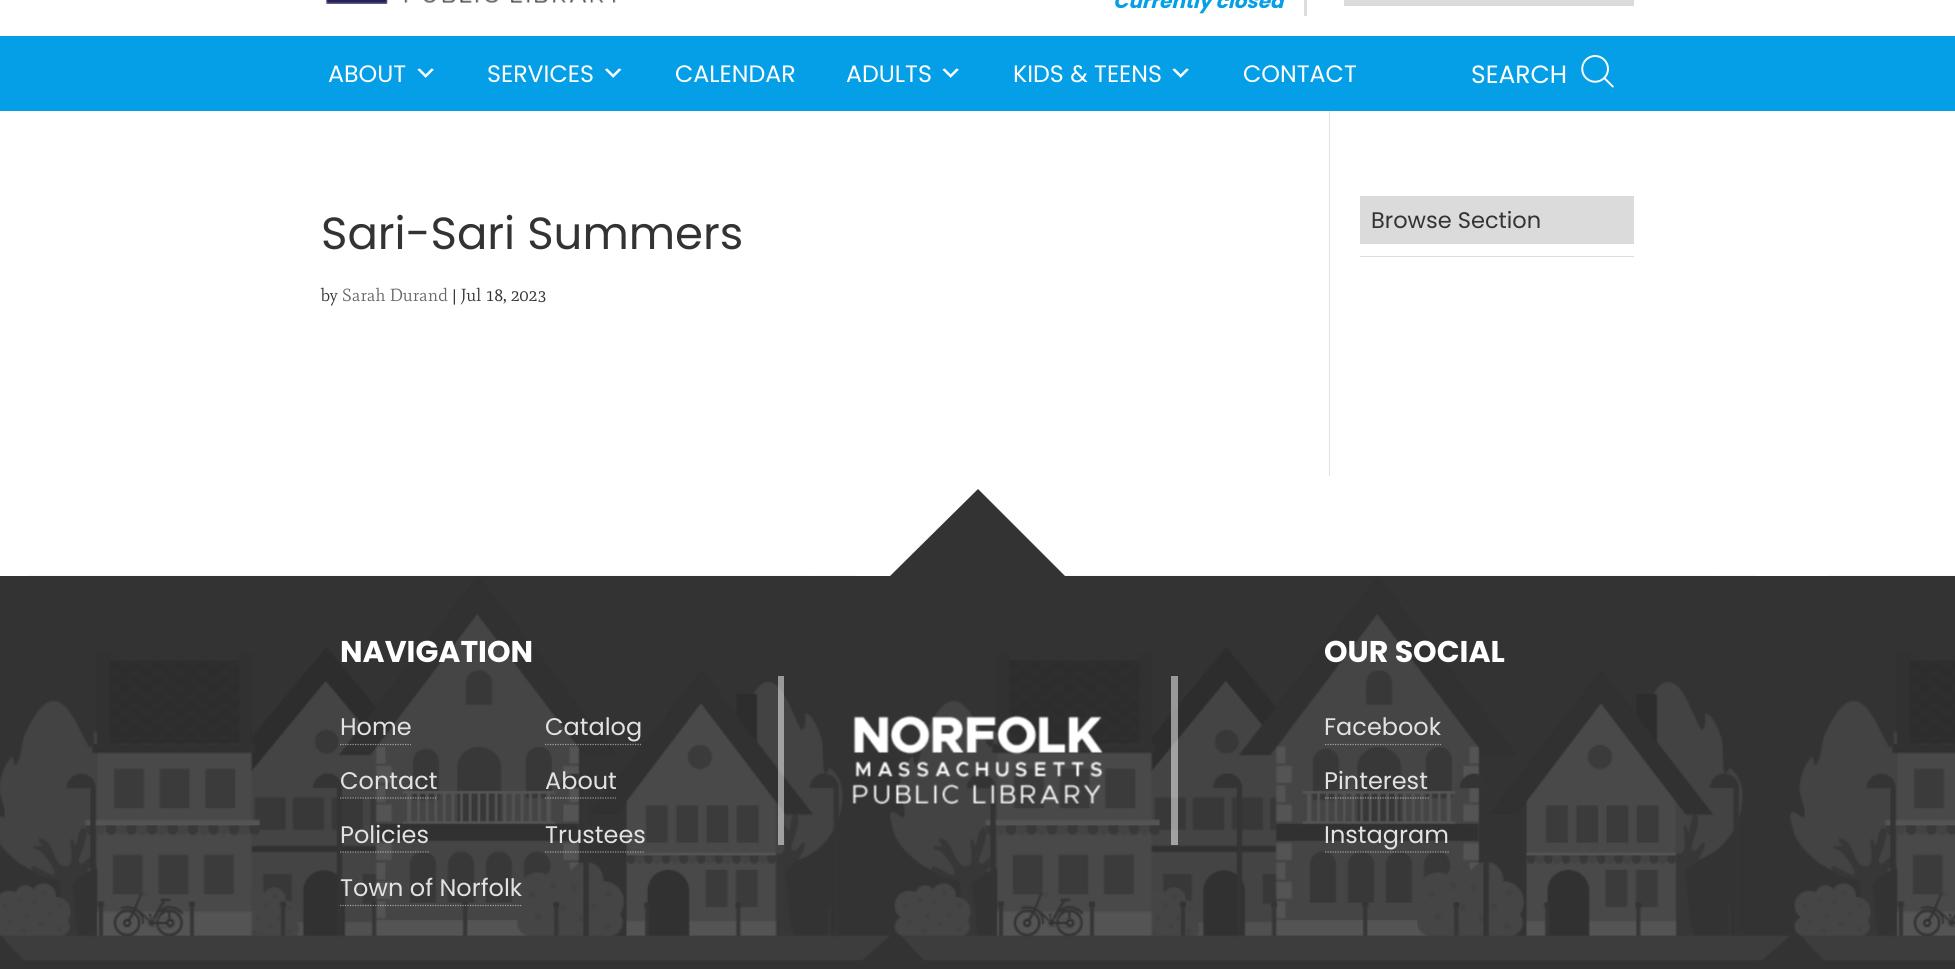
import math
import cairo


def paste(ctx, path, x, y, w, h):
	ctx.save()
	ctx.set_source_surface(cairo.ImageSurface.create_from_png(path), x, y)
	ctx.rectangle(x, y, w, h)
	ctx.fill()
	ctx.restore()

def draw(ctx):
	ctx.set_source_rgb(1, 1, 1)
	ctx.paint()
	paste(ctx, 'media/1.png', 325, 0, 291, 4)
	ctx.set_source_rgb(0.867, 0.867, 0.867)
	ctx.rectangle(1304, 0, 3, 16)
	ctx.fill()
	ctx.select_font_face('Poppins', cairo.FONT_SLANT_ITALIC, cairo.FONT_WEIGHT_BOLD)
	ctx.set_font_size(20)
	ctx.set_source_rgb(0.02, 0.624, 0.906)
	ctx.move_to(1113, 8)
	ctx.show_text('Currently closed')
	ctx.set_source_rgb(0.859, 0.859, 0.859)
	ctx.rectangle(1344, 0, 290, 6)
	ctx.fill()
	ctx.set_source_rgb(0.02, 0.624, 0.906)
	ctx.rectangle(0, 36, 1955, 75)
	ctx.fill()
	ctx.select_font_face('Poppins')
	ctx.set_font_size(23.75)
	ctx.set_source_rgb(1, 1, 1)
	ctx.move_to(328, 82)
	ctx.show_text('ABOUT')
	paste(ctx, 'media/2.png', 417, 68, 17, 10)
	ctx.move_to(487, 82)
	ctx.show_text('SERVICES')
	paste(ctx, 'media/3.png', 604, 68, 18, 10)
	ctx.move_to(675, 82)
	ctx.show_text('CALENDAR')
	ctx.move_to(846, 82)
	ctx.show_text('ADULTS')
	paste(ctx, 'media/2.png', 942, 68, 17, 10)
	ctx.move_to(1013, 82)
	ctx.show_text('KIDS & TEENS')
	paste(ctx, 'media/2.png', 1172, 68, 17, 10)
	ctx.move_to(1243, 82)
	ctx.show_text('CONTACT')
	ctx.set_font_size(25)
	ctx.move_to(1471, 83)
	ctx.show_text('SEARCH')
	paste(ctx, 'media/4.png', 1581, 55, 33, 33)
	ctx.set_source_rgb(0.886, 0.886, 0.886)
	ctx.rectangle(1329, 111, 1, 365)
	ctx.fill()
	ctx.set_font_size(45)
	ctx.set_source_rgb(0.2, 0.2, 0.2)
	ctx.move_to(321, 249)
	ctx.show_text('Sari-Sari Summers')
	ctx.select_font_face('Mate')
	ctx.set_font_size(17.5)
	ctx.move_to(321, 301)
	ctx.show_text('by')
	ctx.set_source_rgb(0.4, 0.4, 0.4)
	ctx.move_to(342, 301)
	ctx.show_text('Sarah Durand')
	ctx.set_source_rgb(0.2, 0.2, 0.2)
	ctx.move_to(452, 301)
	ctx.show_text('| Jul 18, 2023')
	ctx.set_source_rgb(0.859, 0.859, 0.859)
	ctx.rectangle(1360, 196, 274, 48)
	ctx.fill()
	ctx.select_font_face('Poppins')
	ctx.set_font_size(22.5)
	ctx.set_source_rgb(0.2, 0.2, 0.2)
	ctx.move_to(1371, 228)
	ctx.show_text('Browse Section')
	ctx.set_source_rgb(0.867, 0.867, 0.867)
	ctx.rectangle(1360, 256, 274, 1)
	ctx.fill()
	ctx.set_source_rgb(0.2, 0.2, 0.2)
	ctx.rectangle(0, 576, 1955, 393)
	ctx.fill()
	paste(ctx, 'media/5.png', 0, 575, 1955, 386)
	ctx.new_path()
	ctx.move_to(1065, 576)
	ctx.line_to(890, 576)
	ctx.line_to(978, 489)
	ctx.close_path()
	ctx.fill()
	ctx.select_font_face('Poppins', cairo.FONT_SLANT_NORMAL, cairo.FONT_WEIGHT_BOLD)
	ctx.set_font_size(30)
	ctx.set_source_rgb(1, 1, 1)
	ctx.move_to(340, 662)
	ctx.show_text('NAVIGATION')
	ctx.select_font_face('Poppins')
	ctx.set_font_size(24)
	ctx.set_source_rgb(0.886, 0.886, 0.886)
	ctx.move_to(340, 735)
	ctx.show_text('Home')
	ctx.new_path()
	ctx.move_to(340, 744.5)
	ctx.line_to(411, 744.5)
	ctx.set_source_rgba(1, 1, 1, 0.5)
	ctx.set_line_width(1.2)
	ctx.set_dash([1.25, 1.25])
	ctx.stroke()
	ctx.set_source_rgb(0.886, 0.886, 0.886)
	ctx.move_to(545, 735)
	ctx.show_text('Catalog')
	ctx.new_path()
	ctx.move_to(545, 744.5)
	ctx.line_to(641, 744.5)
	ctx.set_source_rgba(1, 1, 1, 0.5)
	ctx.stroke()
	ctx.set_source_rgb(0.886, 0.886, 0.886)
	ctx.move_to(340, 789)
	ctx.show_text('Contact')
	ctx.new_path()
	ctx.move_to(340, 798)
	ctx.line_to(437.5, 798)
	ctx.set_source_rgba(1, 1, 1, 0.5)
	ctx.stroke()
	ctx.set_source_rgb(0.886, 0.886, 0.886)
	ctx.move_to(545, 789)
	ctx.show_text('About')
	ctx.new_path()
	ctx.move_to(545, 798)
	ctx.line_to(616, 798)
	ctx.set_source_rgba(1, 1, 1, 0.5)
	ctx.stroke()
	ctx.set_source_rgb(0.886, 0.886, 0.886)
	ctx.move_to(340, 843)
	ctx.show_text('Policies')
	ctx.new_path()
	ctx.move_to(340, 852)
	ctx.line_to(429, 852)
	ctx.set_source_rgba(1, 1, 1, 0.5)
	ctx.stroke()
	ctx.set_source_rgb(0.886, 0.886, 0.886)
	ctx.move_to(545, 843)
	ctx.show_text('Trustees')
	ctx.new_path()
	ctx.move_to(545, 852)
	ctx.line_to(645, 852)
	ctx.set_source_rgba(1, 1, 1, 0.5)
	ctx.stroke()
	ctx.set_source_rgb(0.886, 0.886, 0.886)
	ctx.move_to(340, 896)
	ctx.show_text('Town of Norfolk')
	ctx.new_path()
	ctx.move_to(340, 905.5)
	ctx.line_to(522.5, 905.5)
	ctx.set_source_rgba(1, 1, 1, 0.5)
	ctx.stroke()
	ctx.rectangle(1171, 676, 7, 169)
	ctx.fill()
	ctx.rectangle(778, 676, 6, 169)
	ctx.fill()
	paste(ctx, 'media/6.png', 852, 715, 251, 90)
	ctx.select_font_face('Poppins', cairo.FONT_SLANT_NORMAL, cairo.FONT_WEIGHT_BOLD)
	ctx.set_font_size(30)
	ctx.set_source_rgb(1, 1, 1)
	ctx.move_to(1324, 662)
	ctx.show_text('OUR SOCIAL')
	ctx.select_font_face('Poppins')
	ctx.set_font_size(24)
	ctx.set_source_rgb(0.886, 0.886, 0.886)
	ctx.move_to(1324, 735)
	ctx.show_text('Facebook')
	ctx.new_path()
	ctx.move_to(1325, 744.5)
	ctx.line_to(1441, 744.5)
	ctx.set_source_rgb(0.635, 0.635, 0.635)
	ctx.stroke()
	ctx.set_source_rgb(0.886, 0.886, 0.886)
	ctx.move_to(1324, 789)
	ctx.show_text('Pinterest')
	ctx.new_path()
	ctx.move_to(1325, 798)
	ctx.line_to(1429, 798)
	ctx.set_source_rgba(1, 1, 1, 0.5)
	ctx.stroke()
	ctx.set_source_rgb(0.886, 0.886, 0.886)
	ctx.move_to(1324, 843)
	ctx.show_text('Instagram')
	ctx.new_path()
	ctx.move_to(1325, 852)
	ctx.line_to(1449, 852)
	ctx.set_source_rgba(1, 1, 1, 0.5)
	ctx.stroke()


surface = cairo.ImageSurface(cairo.FORMAT_RGB24, 1955, 969)
ctx = cairo.Context(surface)
options = cairo.FontOptions()
options.set_hint_metrics(cairo.HINT_METRICS_OFF)
options.set_hint_style(cairo.HINT_STYLE_NONE)
ctx.set_font_options(options)
ctx.set_miter_limit(4)
draw(ctx)
surface.write_to_png('image.png')
